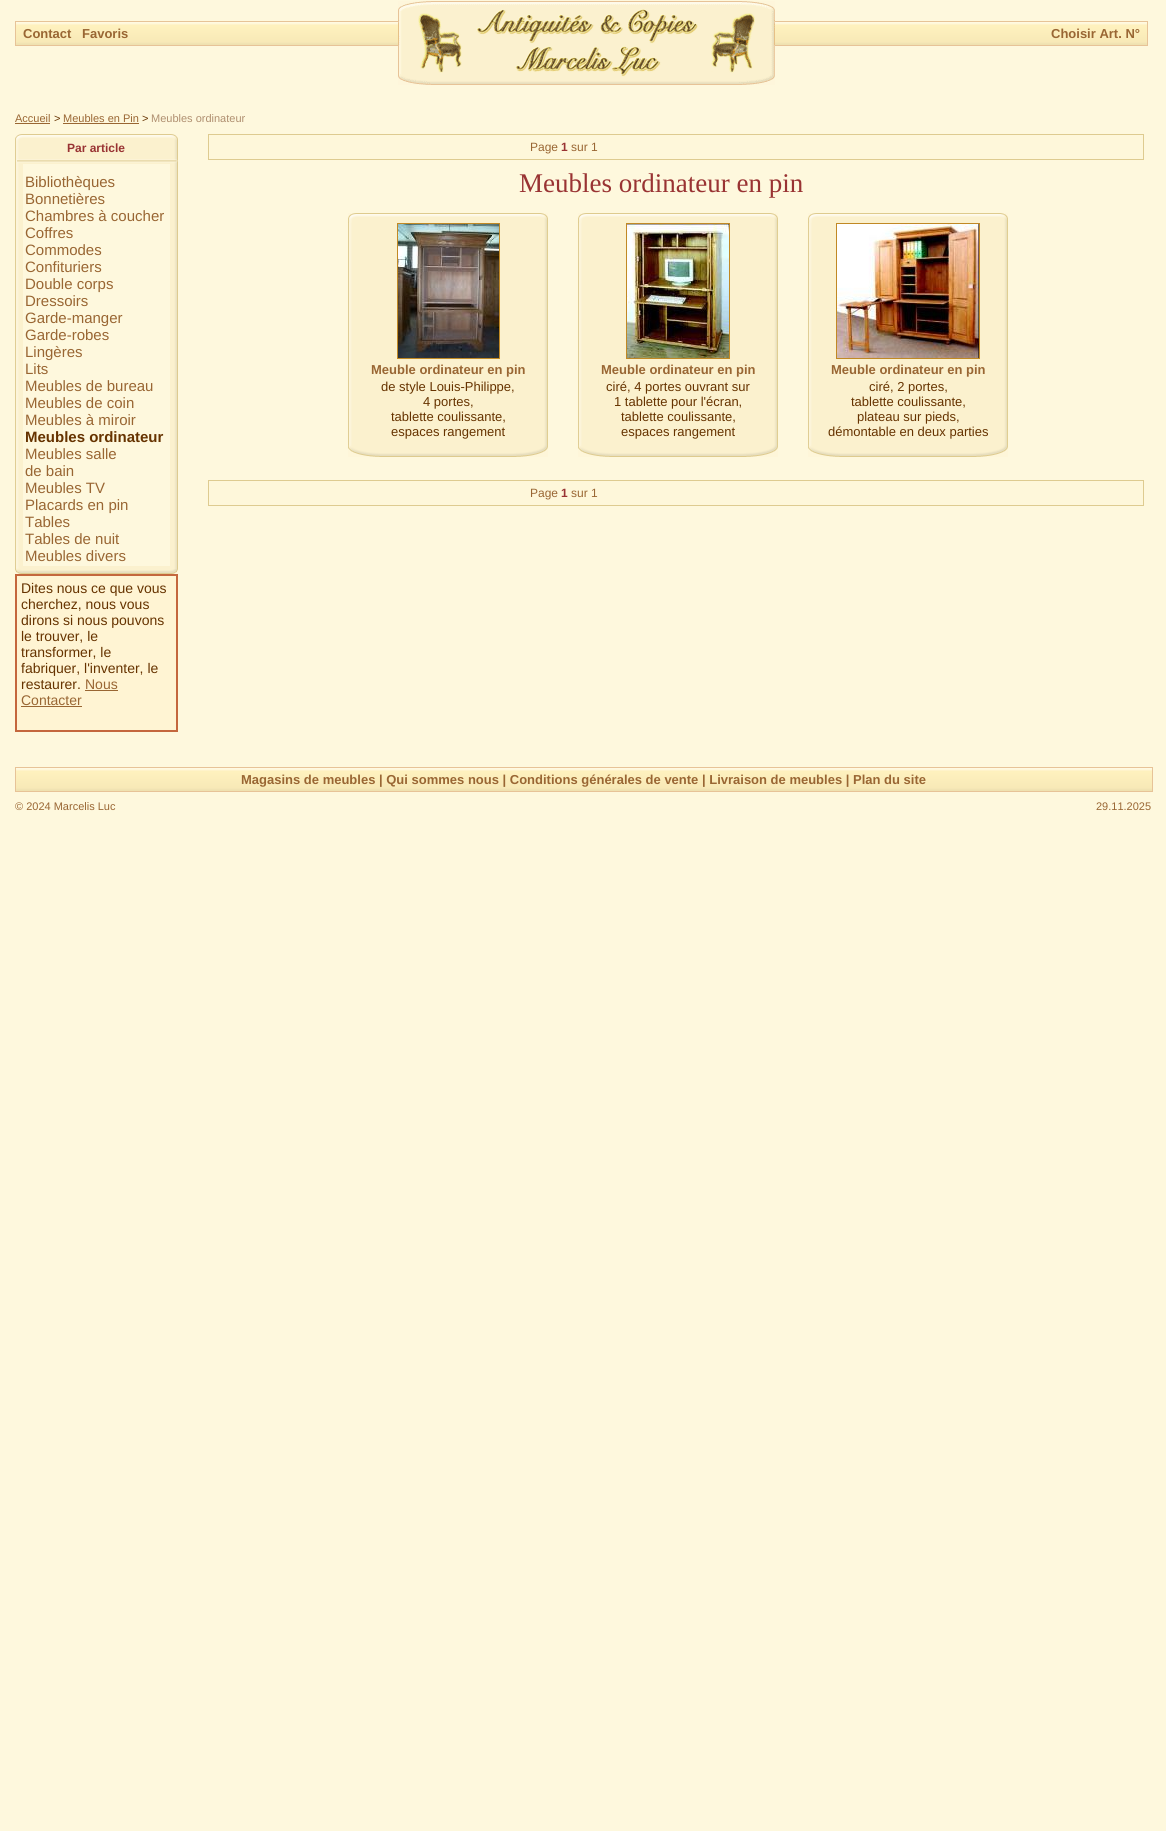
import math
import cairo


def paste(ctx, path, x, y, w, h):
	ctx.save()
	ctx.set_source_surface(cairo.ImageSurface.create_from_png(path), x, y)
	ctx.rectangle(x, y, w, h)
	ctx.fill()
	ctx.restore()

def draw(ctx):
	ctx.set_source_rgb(0.996, 0.969, 0.867)
	ctx.paint()
	paste(ctx, 'media/1.png', 16, 22, 382, 23)
	ctx.set_source_rgb(0.906, 0.765, 0.592)
	ctx.rectangle(15, 21, 384, 1)
	ctx.rectangle(15, 45, 384, 1)
	ctx.rectangle(15, 21, 1, 25)
	ctx.fill()
	ctx.select_font_face('Liberation Sans', cairo.FONT_SLANT_NORMAL, cairo.FONT_WEIGHT_BOLD)
	ctx.set_font_size(13)
	ctx.set_source_rgb(0.6, 0.4, 0.2)
	ctx.move_to(23, 38)
	ctx.show_text('Contact')
	ctx.move_to(82, 38)
	ctx.show_text('Favoris')
	paste(ctx, 'media/2.png', 398, 1, 377, 84)
	paste(ctx, 'media/3.png', 775, 22, 372, 23)
	ctx.set_source_rgb(0.906, 0.765, 0.592)
	ctx.rectangle(775, 21, 373, 1)
	ctx.rectangle(1147, 21, 1, 25)
	ctx.rectangle(775, 45, 373, 1)
	ctx.fill()
	ctx.set_source_rgb(0.6, 0.4, 0.2)
	ctx.move_to(1051, 38)
	ctx.show_text('Choisir Art. N°')
	ctx.select_font_face('Liberation Sans')
	ctx.set_font_size(11)
	ctx.move_to(15, 122)
	ctx.show_text('Accueil')
	ctx.rectangle(15, 123, 35, 1)
	ctx.fill()
	ctx.set_source_rgb(0.4, 0.2, 0)
	ctx.move_to(54, 122)
	ctx.show_text('>')
	ctx.set_source_rgb(0.6, 0.4, 0.2)
	ctx.move_to(63, 122)
	ctx.show_text('Meubles en Pin')
	ctx.rectangle(63, 123, 76, 1)
	ctx.fill()
	ctx.set_source_rgb(0.4, 0.2, 0)
	ctx.move_to(142, 122)
	ctx.show_text('>')
	ctx.set_source_rgb(0.686, 0.561, 0.439)
	ctx.move_to(151, 122)
	ctx.show_text('Meubles ordinateur')
	paste(ctx, 'media/4.png', 15, 163, 8, 8)
	paste(ctx, 'media/5.png', 15, 134, 8, 29)
	paste(ctx, 'media/6.png', 23, 134, 147, 30)
	ctx.select_font_face('Liberation Sans', cairo.FONT_SLANT_NORMAL, cairo.FONT_WEIGHT_BOLD)
	ctx.set_font_size(12)
	ctx.set_source_rgb(0.6, 0.2, 0.2)
	ctx.move_to(67, 152)
	ctx.show_text('Par article')
	paste(ctx, 'media/7.png', 170, 163, 8, 8)
	paste(ctx, 'media/8.png', 170, 134, 8, 29)
	paste(ctx, 'media/9.png', 15, 171, 8, 395)
	ctx.select_font_face('Liberation Sans')
	ctx.set_font_size(15)
	ctx.set_source_rgb(0.6, 0.4, 0.2)
	for x, y, s in [
		(25, 187, 'Bibliothèques'),
		(25, 204, 'Bonnetières'),
		(25, 221, 'Chambres à coucher'),
		(25, 238, 'Coffres'),
		(25, 255, 'Commodes'),
		(25, 272, 'Confituriers'),
		(25, 289, 'Double corps'),
		(25, 306, 'Dressoirs'),
		(25, 323, 'Garde-manger'),
		(25, 340, 'Garde-robes'),
		(25, 357, 'Lingères'),
		(25, 374, 'Lits'),
		(25, 391, 'Meubles de bureau'),
		(25, 408, 'Meubles de coin'),
		(25, 425, 'Meubles à miroir'),
	]:
		ctx.move_to(x, y)
		ctx.show_text(s)
	ctx.select_font_face('Liberation Sans', cairo.FONT_SLANT_NORMAL, cairo.FONT_WEIGHT_BOLD)
	ctx.set_source_rgb(0.4, 0.2, 0)
	ctx.move_to(25, 442)
	ctx.show_text('Meubles ordinateur')
	ctx.select_font_face('Liberation Sans')
	ctx.set_source_rgb(0.6, 0.4, 0.2)
	for x, y, s in [
		(25, 459, 'Meubles salle'),
		(25, 476, 'de bain'),
		(25, 493, 'Meubles TV'),
		(25, 510, 'Placards en pin'),
		(25, 527, 'Tables'),
		(25, 544, 'Tables de nuit'),
		(25, 561, 'Meubles divers'),
	]:
		ctx.move_to(x, y)
		ctx.show_text(s)
	paste(ctx, 'media/10.png', 170, 171, 8, 395)
	paste(ctx, 'media/11.png', 15, 566, 8, 2)
	paste(ctx, 'media/12.png', 15, 568, 8, 6)
	paste(ctx, 'media/13.png', 23, 566, 147, 8)
	paste(ctx, 'media/14.png', 170, 566, 8, 3)
	paste(ctx, 'media/15.png', 170, 569, 8, 5)
	ctx.set_source_rgb(1, 0.957, 0.827)
	ctx.rectangle(16, 575, 161, 156)
	ctx.fill_preserve()
	ctx.set_source_rgb(0.769, 0.404, 0.239)
	ctx.stroke()
	ctx.set_font_size(14)
	ctx.set_source_rgb(0.4, 0.2, 0)
	for x, y, s in [
		(21, 593, 'Dites nous ce que vous'),
		(21, 609, 'cherchez, nous vous'),
		(21, 625, 'dirons si nous pouvons'),
		(21, 641, 'le trouver, le'),
		(21, 657, 'transformer, le'),
		(21, 673, 'fabriquer, l\'inventer, le'),
		(21, 689, 'restaurer.'),
	]:
		ctx.move_to(x, y)
		ctx.show_text(s)
	ctx.set_source_rgb(0.6, 0.4, 0.2)
	ctx.move_to(85, 689)
	ctx.show_text('Nous')
	ctx.rectangle(85, 690, 33, 1)
	ctx.fill()
	ctx.move_to(21, 705)
	ctx.show_text('Contacter')
	ctx.rectangle(21, 706, 61, 1)
	ctx.fill()
	ctx.set_source_rgb(0.996, 0.965, 0.855)
	ctx.rectangle(208.5, 134.5, 935, 25)
	ctx.fill_preserve()
	ctx.set_source_rgb(0.871, 0.796, 0.565)
	ctx.set_line_width(1)
	ctx.stroke()
	ctx.set_font_size(12)
	ctx.set_source_rgb(0.6, 0.4, 0.2)
	ctx.move_to(530, 151)
	ctx.show_text('Page')
	ctx.select_font_face('Liberation Sans', cairo.FONT_SLANT_NORMAL, cairo.FONT_WEIGHT_BOLD)
	ctx.set_source_rgb(0.6, 0.2, 0.2)
	ctx.move_to(561, 151)
	ctx.show_text('1')
	ctx.select_font_face('Liberation Sans')
	ctx.set_source_rgb(0.6, 0.4, 0.2)
	ctx.move_to(571, 151)
	ctx.show_text('sur 1')
	ctx.select_font_face('Liberation Serif')
	ctx.set_font_size(27)
	ctx.set_source_rgb(0.6, 0.2, 0.2)
	ctx.move_to(519, 192)
	ctx.show_text('Meubles ordinateur en pin')
	paste(ctx, 'media/16.png', 348, 213, 200, 10)
	paste(ctx, 'media/17.png', 348, 223, 200, 222)
	ctx.rectangle(397.5, 223.5, 102, 135)
	ctx.set_source_rgb(0.757, 0.537, 0.141)
	ctx.stroke()
	paste(ctx, 'media/18.png', 398, 224, 101, 134)
	ctx.select_font_face('Liberation Sans', cairo.FONT_SLANT_NORMAL, cairo.FONT_WEIGHT_BOLD)
	ctx.set_font_size(13)
	ctx.set_source_rgb(0.6, 0.4, 0.2)
	ctx.move_to(371, 374)
	ctx.show_text('Meuble ordinateur en pin')
	ctx.select_font_face('Liberation Sans')
	ctx.set_source_rgb(0.4, 0.2, 0)
	for x, y, s in [
		(381, 391, 'de style Louis-Philippe,'),
		(423, 406, '4 portes,'),
		(391, 421, 'tablette coulissante,'),
		(391, 436, 'espaces rangement'),
	]:
		ctx.move_to(x, y)
		ctx.show_text(s)
	paste(ctx, 'media/19.png', 348, 445, 200, 12)
	paste(ctx, 'media/16.png', 578, 213, 200, 10)
	paste(ctx, 'media/17.png', 578, 223, 200, 222)
	ctx.rectangle(626.5, 223.5, 103, 135)
	ctx.set_source_rgb(0.757, 0.537, 0.141)
	ctx.stroke()
	paste(ctx, 'media/20.png', 627, 224, 102, 134)
	ctx.select_font_face('Liberation Sans', cairo.FONT_SLANT_NORMAL, cairo.FONT_WEIGHT_BOLD)
	ctx.set_source_rgb(0.6, 0.4, 0.2)
	ctx.move_to(601, 374)
	ctx.show_text('Meuble ordinateur en pin')
	ctx.select_font_face('Liberation Sans')
	ctx.set_source_rgb(0.4, 0.2, 0)
	for x, y, s in [
		(606, 391, 'ciré, 4 portes ouvrant sur'),
		(614, 406, '1 tablette pour l\'écran,'),
		(621, 421, 'tablette coulissante,'),
		(621, 436, 'espaces rangement'),
	]:
		ctx.move_to(x, y)
		ctx.show_text(s)
	paste(ctx, 'media/19.png', 578, 445, 200, 12)
	paste(ctx, 'media/16.png', 808, 213, 200, 10)
	paste(ctx, 'media/17.png', 808, 223, 200, 222)
	ctx.rectangle(836.5, 223.5, 143, 135)
	ctx.set_source_rgb(0.757, 0.537, 0.141)
	ctx.stroke()
	paste(ctx, 'media/21.png', 837, 224, 142, 134)
	ctx.select_font_face('Liberation Sans', cairo.FONT_SLANT_NORMAL, cairo.FONT_WEIGHT_BOLD)
	ctx.set_source_rgb(0.6, 0.4, 0.2)
	ctx.move_to(831, 374)
	ctx.show_text('Meuble ordinateur en pin')
	ctx.select_font_face('Liberation Sans')
	ctx.set_source_rgb(0.4, 0.2, 0)
	for x, y, s in [
		(869, 391, 'ciré, 2 portes,'),
		(851, 406, 'tablette coulissante,'),
		(857, 421, 'plateau sur pieds,'),
		(828, 436, 'démontable en deux parties'),
	]:
		ctx.move_to(x, y)
		ctx.show_text(s)
	paste(ctx, 'media/19.png', 808, 445, 200, 12)
	ctx.set_source_rgb(0.996, 0.965, 0.855)
	ctx.rectangle(208.5, 480.5, 935, 25)
	ctx.fill_preserve()
	ctx.set_source_rgb(0.871, 0.796, 0.565)
	ctx.stroke()
	ctx.set_font_size(12)
	ctx.set_source_rgb(0.6, 0.4, 0.2)
	ctx.move_to(530, 497)
	ctx.show_text('Page')
	ctx.select_font_face('Liberation Sans', cairo.FONT_SLANT_NORMAL, cairo.FONT_WEIGHT_BOLD)
	ctx.set_source_rgb(0.6, 0.2, 0.2)
	ctx.move_to(561, 497)
	ctx.show_text('1')
	ctx.select_font_face('Liberation Sans')
	ctx.set_source_rgb(0.6, 0.4, 0.2)
	ctx.move_to(571, 497)
	ctx.show_text('sur 1')
	paste(ctx, 'media/22.png', 16, 768, 1136, 23)
	ctx.rectangle(15.5, 767.5, 1137, 24)
	ctx.set_source_rgb(0.906, 0.765, 0.592)
	ctx.stroke()
	ctx.select_font_face('Liberation Sans', cairo.FONT_SLANT_NORMAL, cairo.FONT_WEIGHT_BOLD)
	ctx.set_font_size(13)
	ctx.set_source_rgb(0.6, 0.4, 0.2)
	ctx.move_to(241, 784)
	ctx.show_text('Magasins de meubles | Qui sommes nous | Conditions générales de vente | Livraison de meubles | Plan du site')
	ctx.select_font_face('Liberation Sans')
	ctx.set_font_size(11)
	ctx.move_to(15, 810)
	ctx.show_text('© 2024 Marcelis Luc')
	ctx.move_to(1096, 810)
	ctx.show_text('29.11.2025')


surface = cairo.ImageSurface(cairo.FORMAT_RGB24, 1166, 1831)
ctx = cairo.Context(surface)
options = cairo.FontOptions()
options.set_hint_metrics(cairo.HINT_METRICS_OFF)
options.set_hint_style(cairo.HINT_STYLE_NONE)
ctx.set_font_options(options)
ctx.set_miter_limit(4)
draw(ctx)
surface.write_to_png('image.png')
